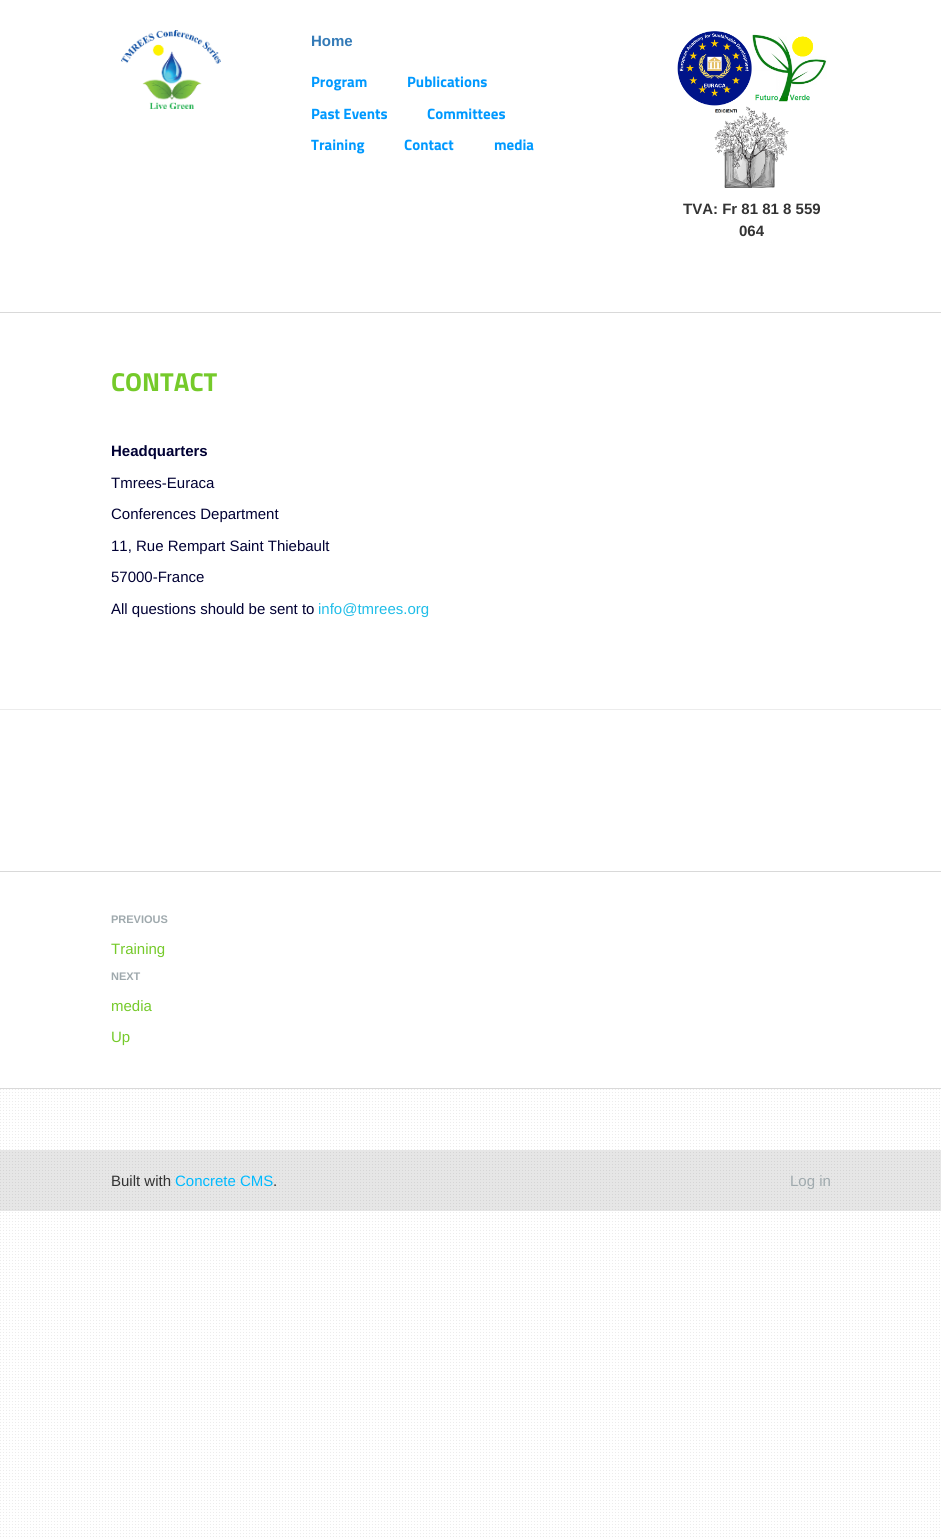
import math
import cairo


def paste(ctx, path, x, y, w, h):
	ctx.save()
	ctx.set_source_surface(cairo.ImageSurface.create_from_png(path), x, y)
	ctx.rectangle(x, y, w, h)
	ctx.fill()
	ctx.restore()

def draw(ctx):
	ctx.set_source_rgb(1, 1, 1)
	ctx.paint()
	paste(ctx, 'media/1.png', 0, 1089, 940, 448)
	ctx.set_source_rgb(0.851, 0.851, 0.851)
	ctx.rectangle(0, 312, 941, 1)
	ctx.fill()
	paste(ctx, 'media/2.png', 121, 30, 100, 79)
	ctx.select_font_face('Liberation Sans', cairo.FONT_SLANT_NORMAL, cairo.FONT_WEIGHT_BOLD)
	ctx.set_font_size(15)
	ctx.set_source_rgb(0.2, 0.478, 0.718)
	ctx.move_to(311, 46)
	ctx.show_text('Home')
	ctx.select_font_face('Titillium Web', cairo.FONT_SLANT_NORMAL, cairo.FONT_WEIGHT_BOLD)
	ctx.set_source_rgb(0, 0.6, 1)
	for x, y, s in [
		(311, 87, 'Program'),
		(407, 87, 'Publications'),
		(311, 119, 'Past Events'),
		(427, 119, 'Committees'),
		(311, 150, 'Training'),
		(404, 150, 'Contact'),
		(494, 150, 'media'),
	]:
		ctx.move_to(x, y)
		ctx.show_text(s)
	paste(ctx, 'media/3.png', 677, 31, 75, 75)
	paste(ctx, 'media/4.png', 752, 34, 75, 68)
	paste(ctx, 'media/5.png', 714, 106, 75, 82)
	ctx.select_font_face('Liberation Sans', cairo.FONT_SLANT_NORMAL, cairo.FONT_WEIGHT_BOLD)
	ctx.set_source_rgb(0.2, 0.2, 0.2)
	ctx.move_to(683, 214)
	ctx.show_text('TVA: Fr 81 81 8 559')
	ctx.move_to(739, 236)
	ctx.show_text('064')
	ctx.select_font_face('Titillium Web', cairo.FONT_SLANT_NORMAL, cairo.FONT_WEIGHT_BOLD)
	ctx.set_font_size(26)
	ctx.set_source_rgb(0.459, 0.792, 0.165)
	ctx.move_to(111, 391)
	ctx.show_text('CONTACT')
	ctx.select_font_face('Liberation Sans', cairo.FONT_SLANT_NORMAL, cairo.FONT_WEIGHT_BOLD)
	ctx.set_font_size(15)
	ctx.set_source_rgb(0, 0, 0.2)
	ctx.move_to(111, 456)
	ctx.show_text('Headquarters')
	ctx.select_font_face('Liberation Sans')
	for x, y, s in [
		(111, 488, 'Tmrees-Euraca'),
		(111, 519, 'Conferences Department'),
		(111, 551, '11, Rue Rempart Saint Thiebault'),
		(111, 582, '57000-France'),
		(111, 614, 'All questions should be sent to'),
	]:
		ctx.move_to(x, y)
		ctx.show_text(s)
	ctx.set_source_rgb(0.125, 0.741, 0.91)
	ctx.move_to(318, 614)
	ctx.show_text('info@tmrees.org')
	ctx.set_source_rgb(0.925, 0.925, 0.925)
	ctx.rectangle(0, 709, 941, 1)
	ctx.fill()
	ctx.set_source_rgb(0.851, 0.851, 0.851)
	ctx.rectangle(0, 871, 941, 1)
	ctx.fill()
	ctx.select_font_face('Liberation Sans', cairo.FONT_SLANT_NORMAL, cairo.FONT_WEIGHT_BOLD)
	ctx.set_font_size(11)
	ctx.set_source_rgb(0.624, 0.663, 0.678)
	ctx.move_to(111, 923)
	ctx.show_text('PREVIOUS')
	ctx.select_font_face('Liberation Sans')
	ctx.set_font_size(15)
	ctx.set_source_rgb(0.459, 0.792, 0.165)
	ctx.move_to(111, 954)
	ctx.show_text('Training')
	ctx.select_font_face('Liberation Sans', cairo.FONT_SLANT_NORMAL, cairo.FONT_WEIGHT_BOLD)
	ctx.set_font_size(11)
	ctx.set_source_rgb(0.624, 0.663, 0.678)
	ctx.move_to(111, 980)
	ctx.show_text('NEXT')
	ctx.select_font_face('Liberation Sans')
	ctx.set_font_size(15)
	ctx.set_source_rgb(0.459, 0.792, 0.165)
	ctx.move_to(111, 1011)
	ctx.show_text('media')
	ctx.move_to(111, 1042)
	ctx.show_text('Up')
	ctx.set_source_rgb(0.851, 0.851, 0.851)
	ctx.rectangle(0, 1088, 941, 1)
	ctx.fill()
	ctx.set_source_rgba(0, 0, 0, 0.1)
	ctx.rectangle(0, 1150, 941, 61)
	ctx.fill()
	ctx.set_source_rgb(0.2, 0.2, 0.2)
	ctx.move_to(111, 1186)
	ctx.show_text('Built with')
	ctx.set_source_rgb(0, 0.729, 1)
	ctx.move_to(175, 1186)
	ctx.show_text('Concrete CMS')
	ctx.set_source_rgb(0.2, 0.2, 0.2)
	ctx.move_to(273, 1186)
	ctx.show_text('.')
	ctx.set_source_rgb(0.624, 0.663, 0.678)
	ctx.move_to(790, 1186)
	ctx.show_text('Log in')


surface = cairo.ImageSurface(cairo.FORMAT_RGB24, 941, 1539)
ctx = cairo.Context(surface)
options = cairo.FontOptions()
options.set_hint_metrics(cairo.HINT_METRICS_OFF)
options.set_hint_style(cairo.HINT_STYLE_NONE)
ctx.set_font_options(options)
ctx.set_miter_limit(4)
draw(ctx)
surface.write_to_png('image.png')
